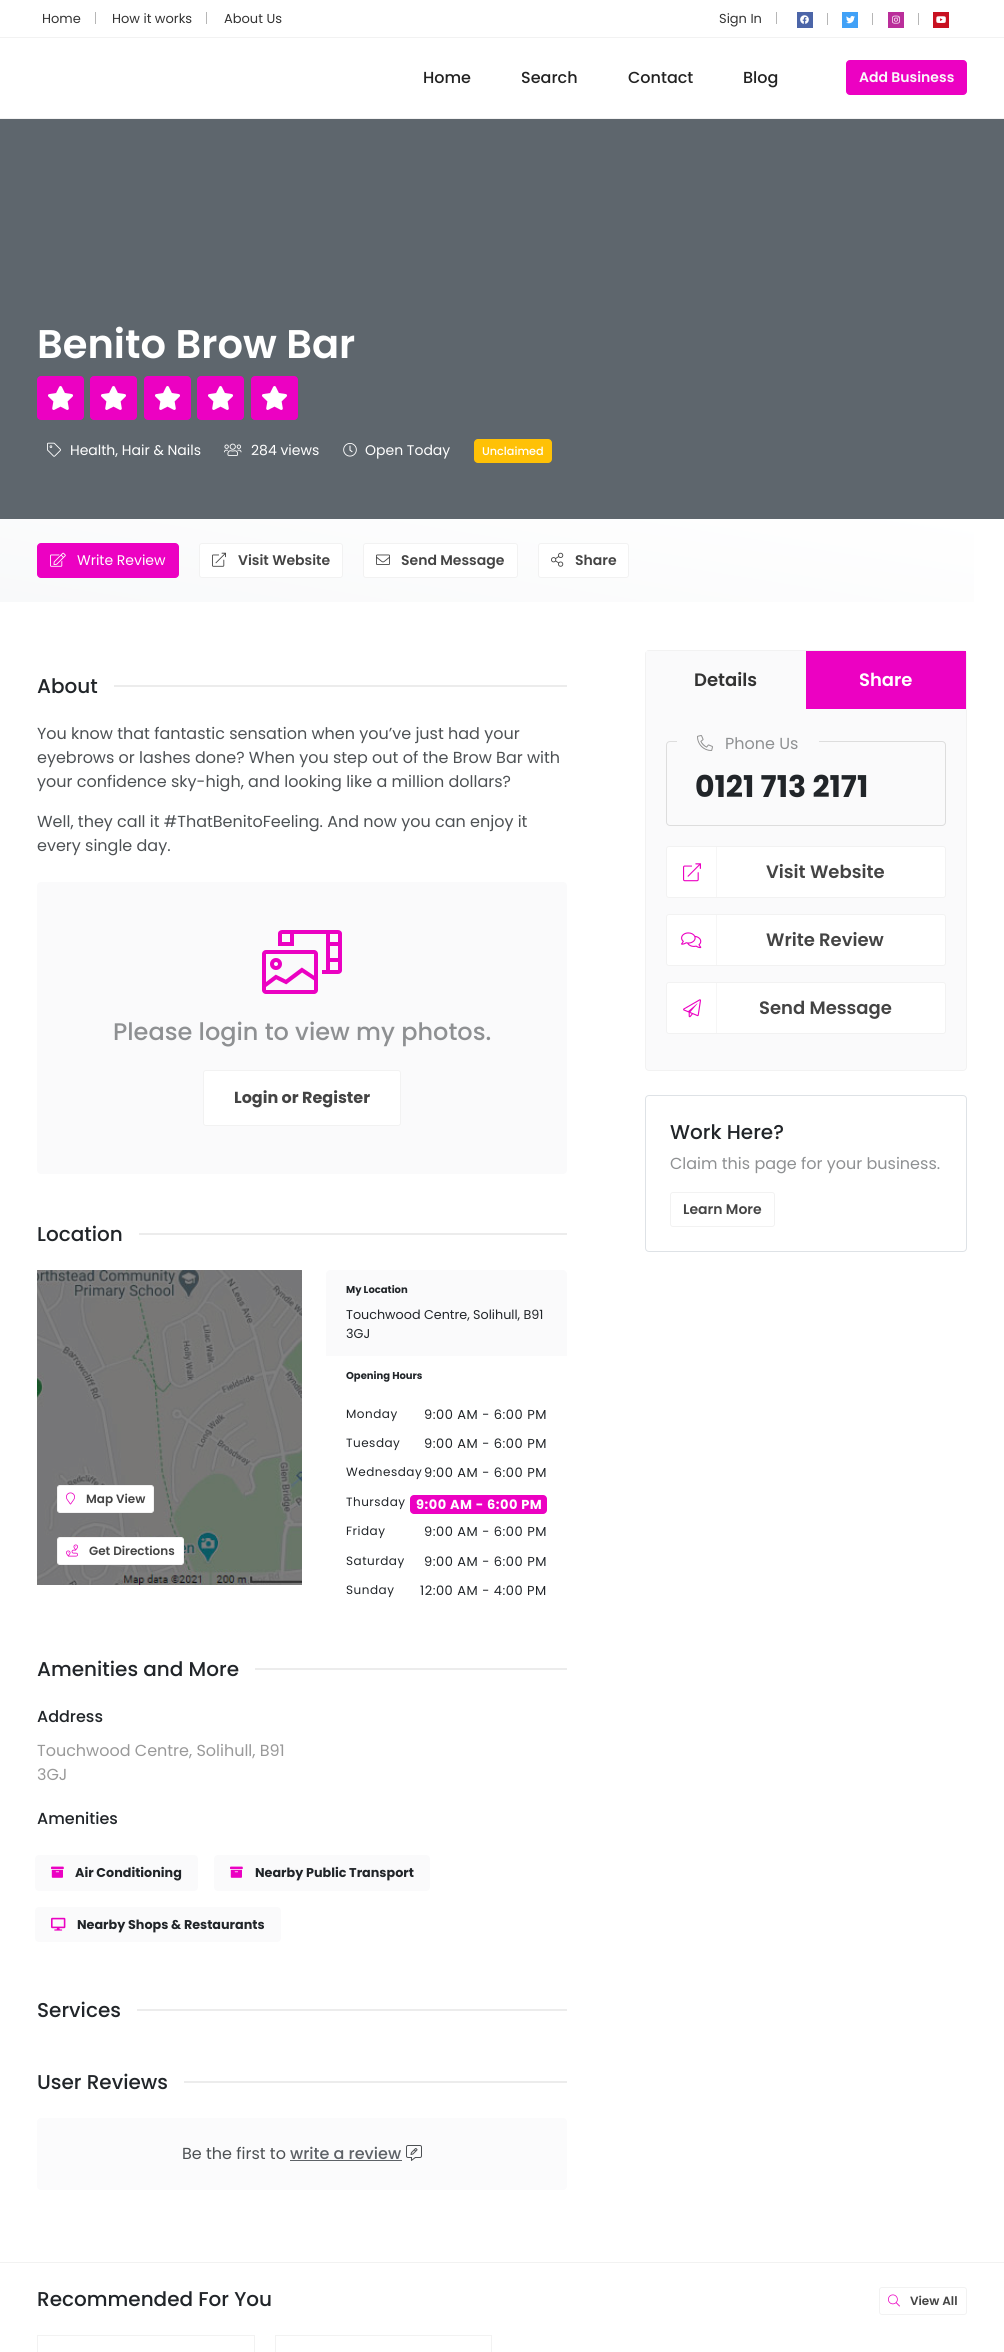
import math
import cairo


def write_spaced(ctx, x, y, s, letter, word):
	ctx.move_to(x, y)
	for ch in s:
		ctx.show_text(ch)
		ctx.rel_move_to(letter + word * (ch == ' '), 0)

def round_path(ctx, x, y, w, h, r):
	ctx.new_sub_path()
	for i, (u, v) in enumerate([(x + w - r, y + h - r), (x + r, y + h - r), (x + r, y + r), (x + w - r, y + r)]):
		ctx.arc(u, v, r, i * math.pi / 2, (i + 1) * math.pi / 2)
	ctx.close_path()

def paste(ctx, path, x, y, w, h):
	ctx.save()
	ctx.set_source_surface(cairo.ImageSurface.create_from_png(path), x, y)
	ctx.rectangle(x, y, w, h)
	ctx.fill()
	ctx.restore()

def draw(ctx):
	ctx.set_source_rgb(1, 1, 1)
	ctx.paint()
	ctx.set_source_rgb(0.949, 0.949, 0.949)
	ctx.rectangle(0, 118, 1004, 1)
	ctx.fill()
	ctx.rectangle(0, 37, 1004, 1)
	ctx.fill()
	ctx.select_font_face('Poppins')
	ctx.set_font_size(13)
	ctx.set_source_rgb(0.2, 0.2, 0.2)
	ctx.move_to(42, 23)
	ctx.show_text('Home')
	ctx.set_source_rgb(0.714, 0.714, 0.714)
	ctx.rectangle(95, 12, 1, 12)
	ctx.fill()
	ctx.set_source_rgb(0.2, 0.2, 0.2)
	ctx.move_to(112, 23)
	ctx.show_text('How it works')
	ctx.set_source_rgb(0.714, 0.714, 0.714)
	ctx.rectangle(206, 12, 1, 12)
	ctx.fill()
	ctx.set_source_rgb(0.2, 0.2, 0.2)
	ctx.move_to(224, 23)
	ctx.show_text('About Us')
	ctx.move_to(719, 23)
	ctx.show_text('Sign In')
	ctx.set_source_rgb(0.714, 0.714, 0.714)
	ctx.rectangle(776, 12, 1, 12)
	ctx.fill()
	ctx.set_source_rgb(0.298, 0.396, 0.659)
	ctx.rectangle(797, 12, 16, 16)
	ctx.fill()
	paste(ctx, 'media/1.png', 800, 15, 9, 9)
	ctx.set_source_rgb(0.714, 0.714, 0.714)
	ctx.rectangle(827, 13, 1, 12)
	ctx.fill()
	ctx.set_source_rgb(0.255, 0.631, 0.965)
	ctx.rectangle(842, 12, 16, 16)
	ctx.fill()
	paste(ctx, 'media/2.png', 846, 16, 9, 8)
	ctx.set_source_rgb(0.714, 0.714, 0.714)
	ctx.rectangle(872, 13, 1, 12)
	ctx.fill()
	ctx.set_source_rgb(0.729, 0.18, 0.604)
	ctx.rectangle(888, 12, 16, 16)
	ctx.fill()
	paste(ctx, 'media/3.png', 892, 15, 8, 9)
	ctx.set_source_rgb(0.714, 0.714, 0.714)
	ctx.rectangle(918, 13, 1, 12)
	ctx.fill()
	ctx.set_source_rgb(0.784, 0.067, 0.129)
	ctx.rectangle(933, 12, 16, 16)
	ctx.fill()
	paste(ctx, 'media/4.png', 936, 16, 10, 7)
	ctx.select_font_face('Poppins Medium')
	ctx.set_font_size(16)
	ctx.set_source_rgb(0.133, 0.133, 0.133)
	for x, y, s in [
		(423, 83, 'Home'),
		(521, 83, 'Search'),
		(628, 83, 'Contact'),
		(743, 83, 'Blog'),
	]:
		ctx.move_to(x, y)
		ctx.show_text(s)
	ctx.set_source_rgb(0.922, 0.004, 0.761)
	round_path(ctx, 846.5, 60.5, 120, 34, 3.5)
	ctx.fill_preserve()
	ctx.set_line_width(1)
	ctx.stroke()
	ctx.select_font_face('Poppins SemiBold')
	ctx.set_font_size(14)
	ctx.set_source_rgb(0.973, 0.976, 0.98)
	ctx.move_to(859, 82)
	ctx.show_text('Add Business')
	ctx.set_source_rgb(0.369, 0.4, 0.427)
	ctx.rectangle(0, 119, 1004, 400)
	ctx.fill()
	ctx.set_font_size(40)
	ctx.set_source_rgb(1, 1, 1)
	ctx.move_to(37, 358)
	ctx.show_text('Benito Brow Bar')
	ctx.set_source_rgb(0.922, 0.004, 0.761)
	round_path(ctx, 37, 376, 47, 44, 4)
	ctx.fill()
	paste(ctx, 'media/5.png', 48, 386, 25, 24)
	round_path(ctx, 90, 376, 47, 44, 4)
	ctx.fill()
	paste(ctx, 'media/5.png', 101, 386, 25, 24)
	round_path(ctx, 144, 376, 47, 44, 4)
	ctx.fill()
	paste(ctx, 'media/5.png', 155, 386, 25, 24)
	round_path(ctx, 197, 376, 47, 44, 4)
	ctx.fill()
	paste(ctx, 'media/5.png', 208, 386, 25, 24)
	round_path(ctx, 251, 376, 47, 44, 4)
	ctx.fill()
	paste(ctx, 'media/5.png', 262, 386, 25, 24)
	paste(ctx, 'media/6.png', 47, 442, 14, 15)
	ctx.select_font_face('Poppins')
	ctx.set_font_size(14)
	ctx.set_source_rgb(1, 1, 1)
	ctx.move_to(70, 455)
	ctx.show_text('Health, Hair & Nails')
	paste(ctx, 'media/7.png', 224, 443, 18, 13)
	ctx.move_to(251, 455)
	ctx.show_text('284 views')
	paste(ctx, 'media/8.png', 343, 443, 14, 14)
	ctx.move_to(365, 455)
	ctx.show_text('Open Today')
	ctx.set_source_rgb(1, 0.757, 0.027)
	round_path(ctx, 474, 439, 78, 24, 4)
	ctx.fill()
	ctx.select_font_face('Poppins Medium')
	ctx.set_font_size(11.25)
	ctx.set_source_rgb(1, 1, 1)
	ctx.move_to(482, 455)
	ctx.show_text('Unclaimed')
	gradient = cairo.LinearGradient(521, 442, 483, 679)
	gradient.add_color_stop_rgba(0, 1, 1, 1, 1)
	gradient.add_color_stop_rgba(1, 0.973, 0.976, 0.98, 1)
	ctx.set_source(gradient)
	ctx.rectangle(0, 519, 974, 83)
	ctx.fill()
	ctx.set_source_rgb(0.922, 0.004, 0.761)
	round_path(ctx, 37.5, 543.5, 141, 34, 3.5)
	ctx.fill_preserve()
	ctx.stroke()
	paste(ctx, 'media/9.png', 50, 552, 16, 15)
	ctx.select_font_face('Poppins')
	ctx.set_font_size(14)
	ctx.set_source_rgb(1, 1, 1)
	ctx.move_to(77, 565)
	ctx.show_text('Write Review')
	round_path(ctx, 199.5, 543.5, 143, 34, 2.5)
	ctx.fill_preserve()
	ctx.set_source_rgb(0.949, 0.949, 0.949)
	ctx.stroke()
	paste(ctx, 'media/10.png', 212, 552, 14, 15)
	ctx.select_font_face('Poppins SemiBold')
	ctx.set_source_rgb(0.267, 0.267, 0.267)
	ctx.move_to(238, 565)
	ctx.show_text('Visit Website')
	ctx.set_source_rgb(1, 1, 1)
	round_path(ctx, 363.5, 543.5, 154, 34, 2.5)
	ctx.fill_preserve()
	ctx.set_source_rgb(0.949, 0.949, 0.949)
	ctx.stroke()
	paste(ctx, 'media/11.png', 376, 554, 14, 11)
	ctx.set_source_rgb(0.267, 0.267, 0.267)
	ctx.move_to(401, 565)
	ctx.show_text('Send Message')
	ctx.set_source_rgb(1, 1, 1)
	round_path(ctx, 538.5, 543.5, 90, 34, 2.5)
	ctx.fill_preserve()
	ctx.set_source_rgb(0.949, 0.949, 0.949)
	ctx.stroke()
	paste(ctx, 'media/12.png', 551, 552, 13, 15)
	ctx.set_source_rgb(0.267, 0.267, 0.267)
	ctx.move_to(575, 565)
	ctx.show_text('Share')
	ctx.select_font_face('Poppins Medium')
	ctx.set_font_size(20)
	ctx.set_source_rgb(0.129, 0.145, 0.161)
	ctx.move_to(37, 693)
	ctx.show_text('About')
	ctx.set_source_rgb(0.922, 0.922, 0.922)
	ctx.rectangle(114, 685, 453, 2)
	ctx.fill()
	ctx.select_font_face('Poppins')
	ctx.set_font_size(16)
	ctx.set_source_rgb(0.302, 0.318, 0.329)
	for x, y, s in [
		(37, 739, 'You know that fantastic sensation when you’ve just had your'),
		(37, 763, 'eyebrows or lashes done? When you step out of the Brow Bar with'),
		(37, 787, 'your confidence sky-high, and looking like a million dollars?'),
		(37, 827, 'Well, they call it #ThatBenitoFeeling. And now you can enjoy it'),
		(37, 851, 'every single day.'),
	]:
		ctx.move_to(x, y)
		ctx.show_text(s)
	ctx.set_source_rgb(0.98, 0.98, 0.984)
	round_path(ctx, 37, 882, 530, 292, 4)
	ctx.fill()
	paste(ctx, 'media/13.png', 262, 930, 80, 64)
	ctx.select_font_face('Poppins Medium')
	ctx.set_font_size(24)
	ctx.set_source_rgb(0.557, 0.565, 0.573)
	ctx.move_to(113, 1040)
	ctx.show_text('Please login to view my photos.')
	ctx.set_source_rgb(1, 1, 1)
	round_path(ctx, 203.5, 1070.5, 197, 55, 2.5)
	ctx.fill_preserve()
	ctx.set_source_rgb(0.949, 0.949, 0.949)
	ctx.stroke()
	ctx.select_font_face('Poppins', cairo.FONT_SLANT_NORMAL, cairo.FONT_WEIGHT_BOLD)
	ctx.set_font_size(16)
	ctx.set_source_rgb(0.267, 0.267, 0.267)
	ctx.move_to(234, 1103)
	ctx.show_text('Login or Register')
	ctx.select_font_face('Poppins Medium')
	ctx.set_font_size(20)
	ctx.set_source_rgb(0.129, 0.145, 0.161)
	ctx.move_to(37, 1241)
	ctx.show_text('Location')
	ctx.set_source_rgb(0.922, 0.922, 0.922)
	ctx.rectangle(139, 1233, 428, 2)
	ctx.fill()
	paste(ctx, 'media/14.png', 37, 1270, 265, 315)
	ctx.set_source_rgb(1, 1, 1)
	round_path(ctx, 57.5, 1485.5, 96, 27, 2.5)
	ctx.fill_preserve()
	ctx.set_source_rgb(0.949, 0.949, 0.949)
	ctx.stroke()
	paste(ctx, 'media/15.png', 66, 1492, 9, 13)
	ctx.select_font_face('Poppins SemiBold')
	ctx.set_font_size(12)
	ctx.set_source_rgb(0.267, 0.267, 0.267)
	ctx.move_to(86, 1503)
	ctx.show_text('Map View')
	ctx.set_source_rgb(1, 1, 1)
	round_path(ctx, 57.5, 1537.5, 126, 27, 2.5)
	ctx.fill_preserve()
	ctx.set_source_rgb(0.949, 0.949, 0.949)
	ctx.stroke()
	paste(ctx, 'media/16.png', 66, 1544, 12, 13)
	ctx.set_source_rgb(0.267, 0.267, 0.267)
	ctx.move_to(89, 1555)
	ctx.show_text('Get Directions')
	ctx.set_source_rgb(0.98, 0.98, 0.984)
	ctx.new_path()
	ctx.move_to(330, 1270)
	ctx.line_to(563, 1270)
	ctx.curve_to(565, 1270, 567, 1272, 567, 1274)
	ctx.line_to(567, 1356)
	ctx.line_to(326, 1356)
	ctx.line_to(326, 1274)
	ctx.curve_to(326, 1272, 328, 1270, 330, 1270)
	ctx.close_path()
	ctx.fill()
	ctx.select_font_face('Poppins', cairo.FONT_SLANT_NORMAL, cairo.FONT_WEIGHT_BOLD)
	ctx.set_font_size(10)
	ctx.set_source_rgb(0.129, 0.145, 0.161)
	ctx.move_to(346, 1293)
	ctx.show_text('My Location')
	ctx.select_font_face('Poppins')
	ctx.set_font_size(12.75)
	ctx.move_to(346, 1319)
	ctx.show_text('Touchwood Centre, Solihull, B91')
	ctx.move_to(346, 1338)
	ctx.show_text('3GJ')
	ctx.select_font_face('Poppins', cairo.FONT_SLANT_NORMAL, cairo.FONT_WEIGHT_BOLD)
	ctx.set_font_size(10)
	ctx.move_to(346, 1379)
	ctx.show_text('Opening Hours')
	ctx.select_font_face('Poppins')
	ctx.set_font_size(12)
	write_spaced(ctx, 346, 1418, 'Monday', 0.5, 0)
	ctx.set_font_size(13)
	write_spaced(ctx, 424, 1419, '9:00 AM - 6:00 PM', 0.5, 0)
	ctx.set_font_size(12)
	write_spaced(ctx, 346, 1447, 'Tuesday', 0.5, 0)
	ctx.set_font_size(13)
	write_spaced(ctx, 424, 1448, '9:00 AM - 6:00 PM', 0.5, 0)
	ctx.set_font_size(12)
	write_spaced(ctx, 346, 1476, 'Wednesday', 0.5, 0)
	ctx.set_font_size(13)
	write_spaced(ctx, 424, 1477, '9:00 AM - 6:00 PM', 0.5, 0)
	ctx.set_font_size(12)
	write_spaced(ctx, 346, 1506, 'Thursday', 0.5, 0)
	ctx.set_source_rgb(0.922, 0.004, 0.761)
	round_path(ctx, 410, 1495, 137, 19, 4)
	ctx.fill()
	ctx.select_font_face('Poppins', cairo.FONT_SLANT_NORMAL, cairo.FONT_WEIGHT_BOLD)
	ctx.set_font_size(13)
	ctx.set_source_rgb(1, 1, 1)
	write_spaced(ctx, 416, 1509, '9:00 AM - 6:00 PM', 0.5, 0)
	ctx.select_font_face('Poppins')
	ctx.set_font_size(12)
	ctx.set_source_rgb(0.129, 0.145, 0.161)
	write_spaced(ctx, 346, 1535, 'Friday', 0.5, 0)
	ctx.set_font_size(13)
	write_spaced(ctx, 424, 1536, '9:00 AM - 6:00 PM', 0.5, 0)
	ctx.set_font_size(12)
	write_spaced(ctx, 346, 1565, 'Saturday', 0.5, 0)
	ctx.set_font_size(13)
	write_spaced(ctx, 424, 1566, '9:00 AM - 6:00 PM', 0.5, 0)
	ctx.set_font_size(12)
	write_spaced(ctx, 346, 1594, 'Sunday', 0.5, 0)
	ctx.set_font_size(13)
	write_spaced(ctx, 420, 1595, '12:00 AM - 4:00 PM', 0.5, 0)
	ctx.select_font_face('Poppins Medium')
	ctx.set_font_size(20)
	ctx.move_to(37, 1676)
	ctx.show_text('Amenities and More')
	ctx.set_source_rgb(0.922, 0.922, 0.922)
	ctx.rectangle(255, 1668, 312, 2)
	ctx.fill()
	ctx.set_font_size(16)
	ctx.set_source_rgb(0.129, 0.145, 0.161)
	ctx.move_to(37, 1722)
	ctx.show_text('Address')
	ctx.select_font_face('Poppins')
	ctx.set_source_rgb(0.6, 0.6, 0.6)
	ctx.move_to(37, 1756)
	ctx.show_text('Touchwood Centre, Solihull, B91')
	ctx.move_to(37, 1780)
	ctx.show_text('3GJ')
	ctx.select_font_face('Poppins Medium')
	ctx.set_source_rgb(0.129, 0.145, 0.161)
	ctx.move_to(37, 1824)
	ctx.show_text('Amenities')
	ctx.set_source_rgb(0.98, 0.98, 0.984)
	round_path(ctx, 35, 1855, 163, 36, 4)
	ctx.fill()
	paste(ctx, 'media/17.png', 51, 1866, 13, 12)
	ctx.select_font_face('Poppins', cairo.FONT_SLANT_NORMAL, cairo.FONT_WEIGHT_BOLD)
	ctx.set_font_size(12.75)
	ctx.set_source_rgb(0.129, 0.145, 0.161)
	ctx.move_to(75, 1877)
	ctx.show_text('Air Conditioning')
	ctx.set_source_rgb(0.98, 0.98, 0.984)
	round_path(ctx, 214, 1855, 216, 36, 4)
	ctx.fill()
	paste(ctx, 'media/17.png', 230, 1866, 13, 12)
	ctx.set_source_rgb(0.129, 0.145, 0.161)
	ctx.move_to(255, 1877)
	ctx.show_text('Nearby Public Transport')
	ctx.set_source_rgb(0.98, 0.98, 0.984)
	round_path(ctx, 35, 1907, 246, 35, 4)
	ctx.fill()
	paste(ctx, 'media/18.png', 51, 1917, 15, 14)
	ctx.set_source_rgb(0.129, 0.145, 0.161)
	ctx.move_to(77, 1929)
	ctx.show_text('Nearby Shops & Restaurants')
	ctx.select_font_face('Poppins Medium')
	ctx.set_font_size(20)
	ctx.move_to(37, 2017)
	ctx.show_text('Services')
	ctx.set_source_rgb(0.922, 0.922, 0.922)
	ctx.rectangle(137, 2009, 430, 2)
	ctx.fill()
	ctx.set_source_rgb(0.129, 0.145, 0.161)
	ctx.move_to(37, 2089)
	ctx.show_text('User Reviews')
	ctx.set_source_rgb(0.922, 0.922, 0.922)
	ctx.rectangle(184, 2081, 383, 2)
	ctx.fill()
	ctx.set_source_rgb(0.984, 0.984, 0.988)
	round_path(ctx, 37, 2118, 530, 72, 4)
	ctx.fill()
	ctx.select_font_face('Poppins')
	ctx.set_font_size(16)
	ctx.set_source_rgb(0.302, 0.318, 0.329)
	ctx.move_to(182, 2159)
	ctx.show_text('Be the first to')
	ctx.select_font_face('Poppins Medium')
	ctx.set_source_rgb(0.365, 0.38, 0.4)
	ctx.move_to(290, 2159)
	ctx.show_text('write a review')
	ctx.rectangle(290, 2160, 112, 1)
	ctx.fill()
	paste(ctx, 'media/19.png', 406, 2145, 16, 16)
	ctx.set_source_rgb(0.98, 0.98, 0.984)
	round_path(ctx, 645.5, 650.5, 321, 420, 3.5)
	ctx.fill_preserve()
	ctx.set_source_rgb(0.949, 0.949, 0.949)
	ctx.stroke()
	ctx.set_source_rgb(0.922, 0.004, 0.761)
	ctx.rectangle(806, 651, 160, 58)
	ctx.fill()
	ctx.set_source_rgb(0.98, 0.98, 0.984)
	ctx.rectangle(646, 651, 2, 2)
	ctx.fill()
	ctx.select_font_face('Poppins SemiBold')
	ctx.set_font_size(18)
	ctx.set_source_rgb(0.2, 0.2, 0.2)
	ctx.move_to(694, 686)
	ctx.show_text('Details')
	ctx.set_source_rgb(1, 1, 1)
	ctx.move_to(859, 686)
	ctx.show_text('Share')
	round_path(ctx, 666.5, 741.5, 279, 84, 3.5)
	ctx.set_source_rgb(0.867, 0.867, 0.867)
	ctx.stroke()
	ctx.set_source_rgb(0.98, 0.98, 0.984)
	ctx.rectangle(677, 741, 142, 1)
	ctx.fill()
	paste(ctx, 'media/20.png', 697, 735, 16, 16)
	ctx.select_font_face('Poppins')
	ctx.set_font_size(16)
	ctx.set_source_rgb(0.557, 0.565, 0.573)
	ctx.move_to(725, 749)
	ctx.show_text('Phone Us')
	ctx.select_font_face('Poppins', cairo.FONT_SLANT_NORMAL, cairo.FONT_WEIGHT_BOLD)
	ctx.set_font_size(30)
	ctx.set_source_rgb(0.129, 0.145, 0.161)
	ctx.move_to(695, 797)
	ctx.show_text('0121 713 2171')
	ctx.set_source_rgb(1, 1, 1)
	round_path(ctx, 666.5, 846.5, 279, 51, 2.5)
	ctx.fill_preserve()
	ctx.set_source_rgb(0.949, 0.949, 0.949)
	ctx.stroke()
	ctx.set_source_rgb(0.961, 0.961, 0.961)
	ctx.rectangle(716, 847, 1, 50)
	ctx.fill()
	paste(ctx, 'media/21.png', 683, 863, 18, 19)
	ctx.select_font_face('Poppins SemiBold')
	ctx.set_font_size(18)
	ctx.set_source_rgb(0.267, 0.267, 0.267)
	ctx.move_to(766, 878)
	ctx.show_text('Visit Website')
	ctx.set_source_rgb(1, 1, 1)
	round_path(ctx, 666.5, 914.5, 279, 51, 2.5)
	ctx.fill_preserve()
	ctx.set_source_rgb(0.949, 0.949, 0.949)
	ctx.stroke()
	ctx.set_source_rgb(0.961, 0.961, 0.961)
	ctx.rectangle(716, 915, 1, 50)
	ctx.fill()
	paste(ctx, 'media/22.png', 681, 932, 21, 17)
	ctx.set_source_rgb(0.267, 0.267, 0.267)
	ctx.move_to(766, 946)
	ctx.show_text('Write Review')
	ctx.set_source_rgb(1, 1, 1)
	round_path(ctx, 666.5, 982.5, 279, 51, 2.5)
	ctx.fill_preserve()
	ctx.set_source_rgb(0.949, 0.949, 0.949)
	ctx.stroke()
	ctx.set_source_rgb(0.961, 0.961, 0.961)
	ctx.rectangle(716, 983, 1, 50)
	ctx.fill()
	paste(ctx, 'media/23.png', 683, 999, 18, 19)
	ctx.set_source_rgb(0.267, 0.267, 0.267)
	ctx.move_to(759, 1014)
	ctx.show_text('Send Message')
	round_path(ctx, 645.5, 1095.5, 321, 156, 3.5)
	ctx.set_source_rgb(0.871, 0.886, 0.902)
	ctx.stroke()
	ctx.select_font_face('Poppins Medium')
	ctx.set_font_size(20)
	ctx.set_source_rgb(0.129, 0.145, 0.161)
	ctx.move_to(670, 1139)
	ctx.show_text('Work Here?')
	ctx.select_font_face('Poppins')
	ctx.set_font_size(16)
	ctx.set_source_rgb(0.557, 0.565, 0.573)
	ctx.move_to(670, 1169)
	ctx.show_text('Claim this page for your business.')
	round_path(ctx, 670.5, 1192.5, 104, 34, 2.5)
	ctx.set_source_rgb(0.949, 0.949, 0.949)
	ctx.stroke()
	ctx.select_font_face('Poppins SemiBold')
	ctx.set_font_size(14)
	ctx.set_source_rgb(0.267, 0.267, 0.267)
	ctx.move_to(683, 1214)
	ctx.show_text('Learn More')
	ctx.set_source_rgb(0.949, 0.949, 0.949)
	ctx.rectangle(0, 2262, 1004, 1)
	ctx.fill()
	ctx.select_font_face('Poppins Medium')
	ctx.set_font_size(20)
	ctx.set_source_rgb(0.129, 0.145, 0.161)
	ctx.move_to(37, 2306)
	ctx.show_text('Recommended For You')
	round_path(ctx, 879.5, 2287.5, 87, 27, 2.5)
	ctx.set_source_rgb(0.949, 0.949, 0.949)
	ctx.stroke()
	paste(ctx, 'media/24.png', 888, 2294, 12, 13)
	ctx.select_font_face('Poppins SemiBold')
	ctx.set_font_size(12)
	ctx.set_source_rgb(0.267, 0.267, 0.267)
	ctx.move_to(910, 2305)
	ctx.show_text('View All')
	ctx.rectangle(37.5, 2335.5, 217, 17)
	ctx.set_source_rgb(0.949, 0.949, 0.949)
	ctx.stroke()
	ctx.rectangle(275.5, 2335.5, 216, 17)
	ctx.stroke()


surface = cairo.ImageSurface(cairo.FORMAT_RGB24, 1004, 2352)
ctx = cairo.Context(surface)
options = cairo.FontOptions()
options.set_hint_metrics(cairo.HINT_METRICS_OFF)
options.set_hint_style(cairo.HINT_STYLE_NONE)
ctx.set_font_options(options)
ctx.set_miter_limit(4)
draw(ctx)
surface.write_to_png('image.png')
